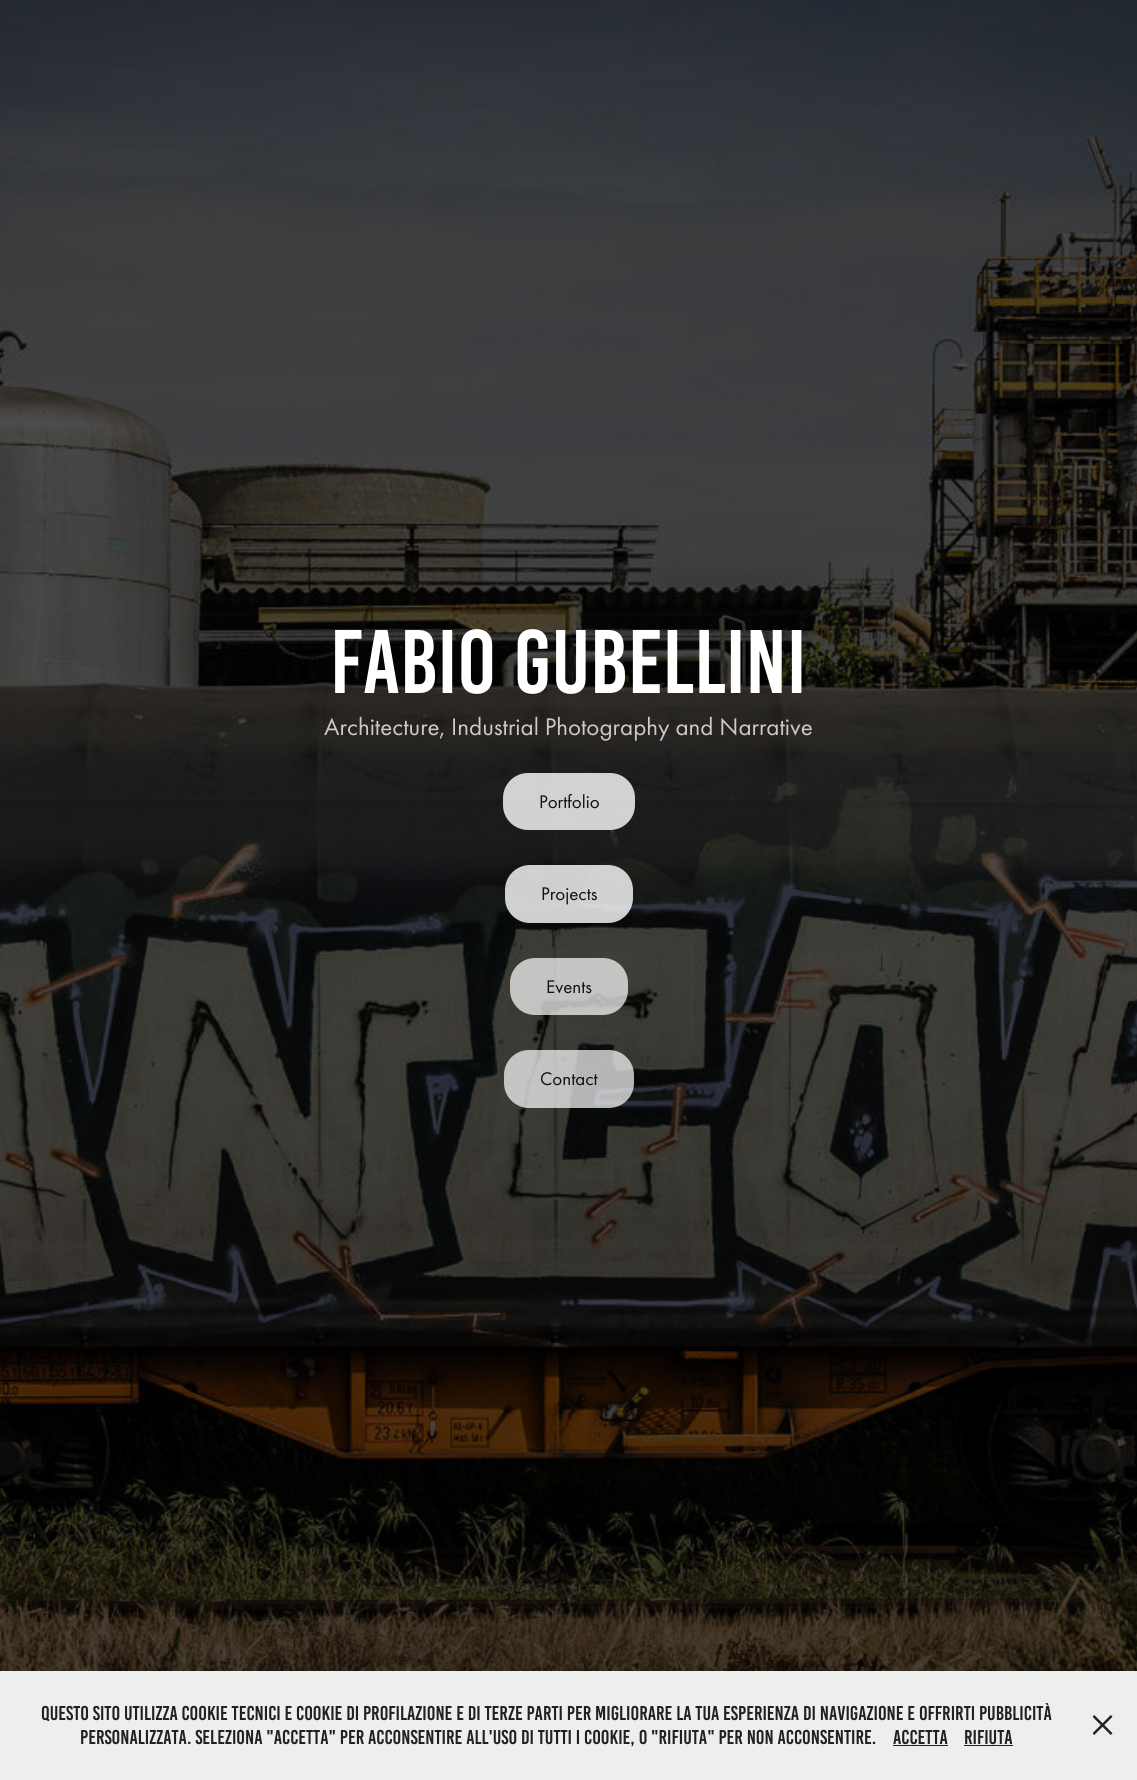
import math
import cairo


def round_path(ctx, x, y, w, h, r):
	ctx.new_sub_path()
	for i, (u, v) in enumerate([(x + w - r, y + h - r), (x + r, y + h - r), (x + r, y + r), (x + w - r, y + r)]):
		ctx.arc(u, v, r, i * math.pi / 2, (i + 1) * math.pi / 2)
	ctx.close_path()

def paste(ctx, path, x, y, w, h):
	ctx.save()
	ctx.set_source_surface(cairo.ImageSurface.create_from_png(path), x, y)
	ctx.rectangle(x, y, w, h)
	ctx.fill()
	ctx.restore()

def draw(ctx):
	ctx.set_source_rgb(1, 1, 1)
	ctx.paint()
	paste(ctx, 'media/1.png', 0, 0, 1137, 1671)
	ctx.select_font_face('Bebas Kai')
	ctx.set_font_size(90)
	ctx.set_source_rgb(1, 1, 1)
	ctx.move_to(330, 693)
	ctx.show_text('Fabio Gubellini')
	ctx.select_font_face('Futura PT')
	ctx.set_font_size(25)
	ctx.set_source_rgb(0.816, 0.788, 0.788)
	ctx.move_to(324, 735)
	ctx.show_text('Architecture, Industrial Photography and Narrative')
	ctx.set_source_rgba(1, 1, 1, 0.8)
	round_path(ctx, 503, 773, 132, 57, 25)
	ctx.fill()
	ctx.set_font_size(19)
	ctx.set_source_rgb(0.067, 0.067, 0.067)
	ctx.move_to(539, 808)
	ctx.show_text('Portfolio')
	ctx.set_source_rgba(1, 1, 1, 0.8)
	round_path(ctx, 505, 865, 128, 58, 25)
	ctx.fill()
	ctx.set_source_rgb(0.067, 0.067, 0.067)
	ctx.move_to(541, 900)
	ctx.show_text('Projects')
	ctx.set_source_rgba(1, 1, 1, 0.7)
	round_path(ctx, 510, 958, 118, 57, 25)
	ctx.fill()
	ctx.set_source_rgb(0.067, 0.067, 0.067)
	ctx.move_to(546, 993)
	ctx.show_text('Events')
	ctx.set_source_rgba(1, 1, 1, 0.7)
	round_path(ctx, 504, 1050, 130, 58, 25)
	ctx.fill()
	ctx.set_source_rgb(0.067, 0.067, 0.067)
	ctx.move_to(540, 1085)
	ctx.show_text('Contact')
	ctx.set_source_rgb(0.929, 0.933, 0.933)
	ctx.rectangle(0, 1671, 1137, 109)
	ctx.fill()
	ctx.select_font_face('Bebas Kai')
	ctx.set_font_size(20)
	ctx.set_source_rgb(0.129, 0.129, 0.129)
	for x, y, s in [
		(41, 1720, 'Questo sito utilizza cookie tecnici e cookie di profilazione e di terze parti per migliorare la tua esperienza di navigazione e offrirti pubblicità'),
		(80, 1744, 'personalizzata. Seleziona "Accetta" per acconsentire all\'uso di tutti i cookie, o "Rifiuta" per non acconsentire.'),
		(893, 1744, 'Accetta'),
	]:
		ctx.move_to(x, y)
		ctx.show_text(s)
	ctx.rectangle(893, 1745, 55, 1)
	ctx.fill()
	ctx.move_to(964, 1744)
	ctx.show_text('Rifiuta')
	ctx.rectangle(964, 1745, 49, 1)
	ctx.fill()
	paste(ctx, 'media/2.png', 1093, 1715, 20, 20)


surface = cairo.ImageSurface(cairo.FORMAT_RGB24, 1137, 1780)
ctx = cairo.Context(surface)
options = cairo.FontOptions()
options.set_hint_metrics(cairo.HINT_METRICS_OFF)
options.set_hint_style(cairo.HINT_STYLE_NONE)
ctx.set_font_options(options)
ctx.set_miter_limit(4)
draw(ctx)
surface.write_to_png('image.png')
